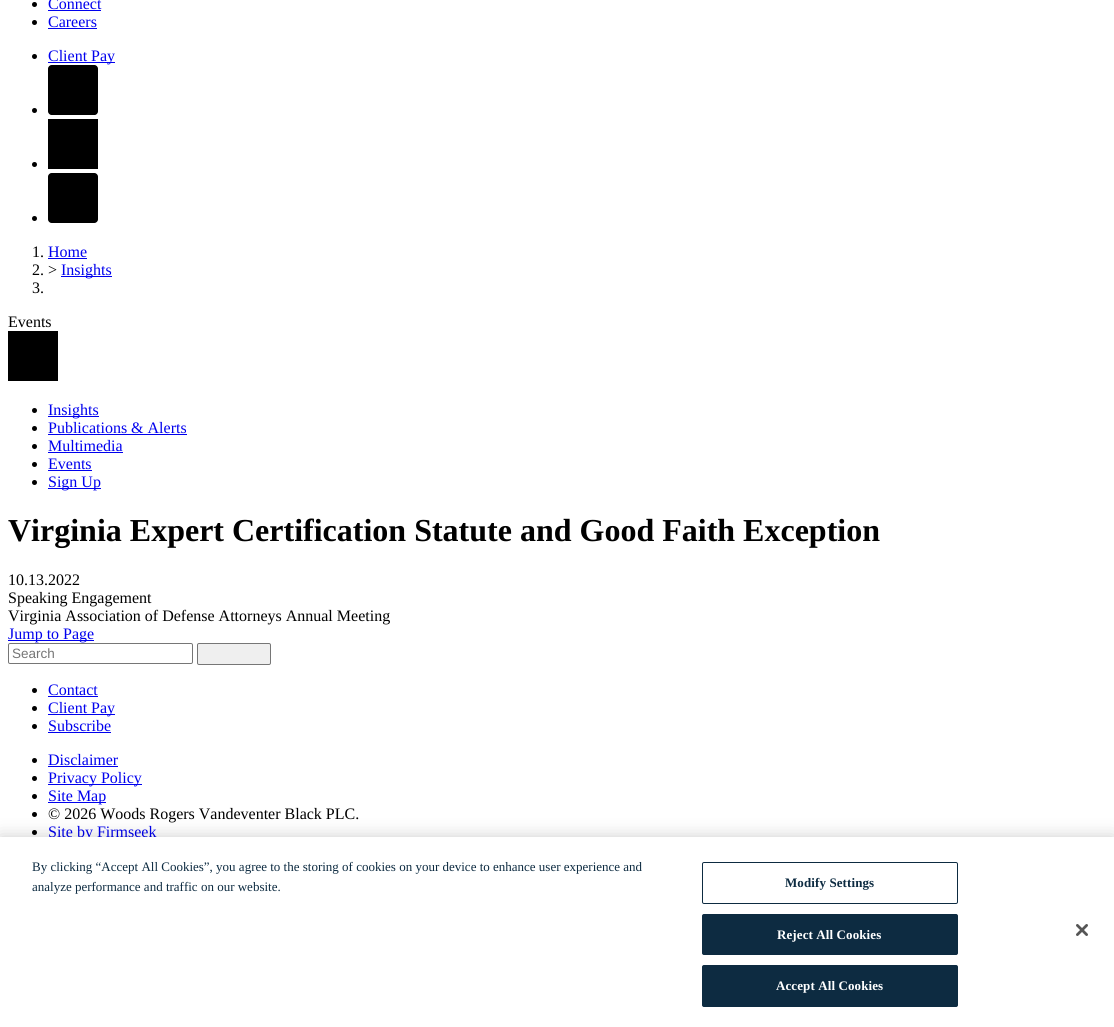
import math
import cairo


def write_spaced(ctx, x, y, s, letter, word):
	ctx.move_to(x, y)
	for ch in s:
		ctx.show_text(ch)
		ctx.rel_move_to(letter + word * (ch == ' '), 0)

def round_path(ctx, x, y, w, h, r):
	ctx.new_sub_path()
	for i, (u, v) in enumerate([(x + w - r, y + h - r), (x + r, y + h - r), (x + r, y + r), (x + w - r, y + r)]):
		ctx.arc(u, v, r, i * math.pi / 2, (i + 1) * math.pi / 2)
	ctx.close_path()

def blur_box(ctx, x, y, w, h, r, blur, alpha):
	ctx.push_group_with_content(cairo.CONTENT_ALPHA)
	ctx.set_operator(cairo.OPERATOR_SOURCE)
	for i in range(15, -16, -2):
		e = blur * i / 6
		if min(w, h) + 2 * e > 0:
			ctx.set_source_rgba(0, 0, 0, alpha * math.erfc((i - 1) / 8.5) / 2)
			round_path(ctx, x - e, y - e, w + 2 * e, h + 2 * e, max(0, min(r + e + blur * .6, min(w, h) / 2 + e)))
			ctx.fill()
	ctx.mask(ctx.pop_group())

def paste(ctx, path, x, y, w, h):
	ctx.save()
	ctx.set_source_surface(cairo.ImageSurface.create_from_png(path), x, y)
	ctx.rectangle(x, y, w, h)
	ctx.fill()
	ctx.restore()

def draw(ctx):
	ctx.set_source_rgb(1, 1, 1)
	ctx.paint()
	ctx.set_source_rgb(0, 0, 0)
	ctx.arc(34.5, 4.5, 2.5, 0, 2 * math.pi)
	ctx.fill()
	ctx.select_font_face('Liberation Serif')
	ctx.set_font_size(16)
	ctx.set_source_rgb(0, 0, 0.933)
	ctx.move_to(48, 9)
	ctx.show_text('Connect')
	ctx.rectangle(48, 10, 53, 1)
	ctx.fill()
	ctx.set_source_rgb(0, 0, 0)
	ctx.arc(34.5, 22.5, 2.5, 0, 2 * math.pi)
	ctx.fill()
	ctx.set_source_rgb(0, 0, 0.933)
	ctx.move_to(48, 27)
	ctx.show_text('Careers')
	ctx.rectangle(48, 28, 49, 1)
	ctx.fill()
	ctx.set_source_rgb(0, 0, 0)
	ctx.arc(34.5, 56.5, 2.5, 0, 2 * math.pi)
	ctx.fill()
	ctx.set_source_rgb(0, 0, 0.933)
	ctx.rectangle(48, 62, 67, 1)
	ctx.fill()
	ctx.move_to(48, 61)
	ctx.show_text('Client Pay')
	ctx.set_source_rgb(0, 0, 0)
	ctx.new_path()
	ctx.arc(34.5, 110.5, 2.5, 0, 2 * math.pi)
	ctx.fill()
	paste(ctx, 'media/1.png', 48, 65, 50, 50)
	ctx.arc(34.5, 164.5, 2.5, 0, 2 * math.pi)
	ctx.fill()
	ctx.rectangle(48, 119, 50, 50)
	ctx.fill()
	ctx.arc(34.5, 218.5, 2.5, 0, 2 * math.pi)
	ctx.fill()
	paste(ctx, 'media/2.png', 48, 173, 50, 50)
	ctx.move_to(32, 257)
	ctx.show_text('1.')
	ctx.set_source_rgb(0, 0, 0.933)
	ctx.move_to(48, 257)
	ctx.show_text('Home')
	ctx.rectangle(48, 258, 39, 1)
	ctx.fill()
	ctx.set_source_rgb(0, 0, 0)
	ctx.move_to(32, 275)
	ctx.show_text('2. >')
	ctx.set_source_rgb(0, 0, 0.933)
	ctx.rectangle(61, 276, 51, 1)
	ctx.fill()
	ctx.move_to(61, 275)
	ctx.show_text('Insights')
	ctx.set_source_rgb(0, 0, 0)
	ctx.move_to(32, 293)
	ctx.show_text('3.')
	ctx.move_to(8, 327)
	ctx.show_text('Events')
	ctx.rectangle(8, 331, 50, 50)
	ctx.fill()
	ctx.arc(34.5, 410.5, 2.5, 0, 2 * math.pi)
	ctx.fill()
	ctx.set_source_rgb(0, 0, 0.933)
	ctx.rectangle(48, 416, 51, 1)
	ctx.fill()
	ctx.move_to(48, 415)
	ctx.show_text('Insights')
	ctx.set_source_rgb(0, 0, 0)
	ctx.new_path()
	ctx.arc(34.5, 428.5, 2.5, 0, 2 * math.pi)
	ctx.fill()
	ctx.set_source_rgb(0, 0, 0.933)
	ctx.move_to(48, 433)
	ctx.show_text('Publications & Alerts')
	ctx.rectangle(48, 434, 139, 1)
	ctx.fill()
	ctx.set_source_rgb(0, 0, 0)
	ctx.arc(34.5, 446.5, 2.5, 0, 2 * math.pi)
	ctx.fill()
	ctx.set_source_rgb(0, 0, 0.933)
	ctx.move_to(48, 451)
	ctx.show_text('Multimedia')
	ctx.rectangle(48, 452, 75, 1)
	ctx.fill()
	ctx.set_source_rgb(0, 0, 0)
	ctx.arc(34.5, 464.5, 2.5, 0, 2 * math.pi)
	ctx.fill()
	ctx.set_source_rgb(0, 0, 0.933)
	ctx.move_to(48, 469)
	ctx.show_text('Events')
	ctx.rectangle(48, 470, 44, 1)
	ctx.fill()
	ctx.set_source_rgb(0, 0, 0)
	ctx.arc(34.5, 482.5, 2.5, 0, 2 * math.pi)
	ctx.fill()
	ctx.set_source_rgb(0, 0, 0.933)
	ctx.rectangle(48, 488, 53, 1)
	ctx.fill()
	ctx.move_to(48, 487)
	ctx.show_text('Sign Up')
	ctx.select_font_face('Liberation Serif', cairo.FONT_SLANT_NORMAL, cairo.FONT_WEIGHT_BOLD)
	ctx.set_font_size(32)
	ctx.set_source_rgb(0, 0, 0)
	ctx.move_to(8, 541)
	ctx.show_text('Virginia Expert Certification Statute and Good Faith Exception')
	ctx.select_font_face('Liberation Serif')
	ctx.set_font_size(16)
	for x, y, s in [
		(8, 585, '10.13.2022'),
		(8, 603, 'Speaking Engagement'),
		(8, 621, 'Virginia Association of Defense Attorneys Annual Meeting'),
	]:
		ctx.move_to(x, y)
		ctx.show_text(s)
	ctx.set_source_rgb(0, 0, 0.933)
	ctx.rectangle(8, 640, 86, 1)
	ctx.fill()
	ctx.move_to(8, 639)
	ctx.show_text('Jump to Page')
	round_path(ctx, 8.5, 643.5, 184, 20, 1.5)
	ctx.set_source_rgb(0.463, 0.463, 0.463)
	ctx.set_line_width(1)
	ctx.stroke()
	ctx.select_font_face('Liberation Sans')
	ctx.set_font_size(13.5)
	ctx.set_source_rgb(0.459, 0.459, 0.459)
	ctx.move_to(12, 658)
	ctx.show_text('Search')
	ctx.set_source_rgb(0.937, 0.937, 0.937)
	round_path(ctx, 197.5, 643.5, 73, 21, 1.5)
	ctx.fill_preserve()
	ctx.set_source_rgb(0.463, 0.463, 0.463)
	ctx.stroke()
	ctx.set_source_rgb(0, 0, 0)
	ctx.arc(34.5, 690.5, 2.5, 0, 2 * math.pi)
	ctx.fill()
	ctx.select_font_face('Liberation Serif')
	ctx.set_font_size(16)
	ctx.set_source_rgb(0, 0, 0.933)
	ctx.move_to(48, 695)
	ctx.show_text('Contact')
	ctx.rectangle(48, 696, 50, 1)
	ctx.fill()
	ctx.set_source_rgb(0, 0, 0)
	ctx.arc(34.5, 708.5, 2.5, 0, 2 * math.pi)
	ctx.fill()
	ctx.set_source_rgb(0, 0, 0.933)
	ctx.rectangle(48, 714, 67, 1)
	ctx.fill()
	ctx.move_to(48, 713)
	ctx.show_text('Client Pay')
	ctx.set_source_rgb(0, 0, 0)
	ctx.new_path()
	ctx.arc(34.5, 726.5, 2.5, 0, 2 * math.pi)
	ctx.fill()
	ctx.set_source_rgb(0, 0, 0.933)
	ctx.move_to(48, 731)
	ctx.show_text('Subscribe')
	ctx.rectangle(48, 732, 63, 1)
	ctx.fill()
	ctx.set_source_rgb(0, 0, 0)
	ctx.arc(34.5, 760.5, 2.5, 0, 2 * math.pi)
	ctx.fill()
	ctx.set_source_rgb(0, 0, 0.933)
	ctx.move_to(48, 765)
	ctx.show_text('Disclaimer')
	ctx.rectangle(48, 766, 70, 1)
	ctx.fill()
	ctx.set_source_rgb(0, 0, 0)
	ctx.arc(34.5, 778.5, 2.5, 0, 2 * math.pi)
	ctx.fill()
	ctx.set_source_rgb(0, 0, 0.933)
	ctx.rectangle(48, 784, 94, 1)
	ctx.fill()
	ctx.move_to(48, 783)
	ctx.show_text('Privacy Policy')
	ctx.set_source_rgb(0, 0, 0)
	ctx.new_path()
	ctx.arc(34.5, 796.5, 2.5, 0, 2 * math.pi)
	ctx.fill()
	ctx.set_source_rgb(0, 0, 0.933)
	ctx.rectangle(48, 802, 58, 1)
	ctx.fill()
	ctx.move_to(48, 801)
	ctx.show_text('Site Map')
	ctx.set_source_rgb(0, 0, 0)
	ctx.new_path()
	ctx.arc(34.5, 814.5, 2.5, 0, 2 * math.pi)
	ctx.fill()
	ctx.move_to(48, 819)
	ctx.show_text('© 2026 Woods Rogers Vandeventer Black PLC.')
	ctx.new_path()
	ctx.arc(34.5, 832.5, 2.5, 0, 2 * math.pi)
	ctx.fill()
	ctx.set_source_rgb(0, 0, 0.933)
	ctx.move_to(48, 837)
	ctx.show_text('Site by Firmseek')
	ctx.set_source_rgb(0, 0, 0)
	blur_box(ctx, 0, 837, 1114, 190, 0, 9, 0.2)
	ctx.set_source_rgb(1, 1, 1)
	ctx.rectangle(0, 837, 1114, 190)
	ctx.fill()
	ctx.set_font_size(13)
	ctx.set_source_rgb(0.051, 0.169, 0.255)
	ctx.move_to(32, 871)
	ctx.show_text('By clicking “Accept All Cookies”, you agree to the storing of cookies on your device to enhance user experience and')
	ctx.move_to(32, 891)
	ctx.show_text('analyze performance and traffic on our website.')
	round_path(ctx, 702.5, 862.5, 255, 41, 1.5)
	ctx.stroke()
	ctx.select_font_face('Liberation Serif', cairo.FONT_SLANT_NORMAL, cairo.FONT_WEIGHT_BOLD)
	write_spaced(ctx, 785, 887, 'Modify Settings', 0.1, 0)
	round_path(ctx, 702.5, 914.5, 255, 40, 1.5)
	ctx.fill_preserve()
	ctx.stroke()
	ctx.set_source_rgb(1, 1, 1)
	write_spaced(ctx, 777, 939, 'Reject All Cookies', 0.1, 0)
	ctx.set_source_rgb(0.051, 0.169, 0.255)
	round_path(ctx, 702.5, 965.5, 255, 41, 1.5)
	ctx.fill_preserve()
	ctx.stroke()
	ctx.set_source_rgb(1, 1, 1)
	write_spaced(ctx, 776, 990, 'Accept All Cookies', 0.1, 0)
	paste(ctx, 'media/3.png', 1076, 924, 12, 12)


surface = cairo.ImageSurface(cairo.FORMAT_RGB24, 1114, 1027)
ctx = cairo.Context(surface)
options = cairo.FontOptions()
options.set_hint_metrics(cairo.HINT_METRICS_OFF)
options.set_hint_style(cairo.HINT_STYLE_NONE)
ctx.set_font_options(options)
ctx.set_miter_limit(4)
draw(ctx)
surface.write_to_png('image.png')
